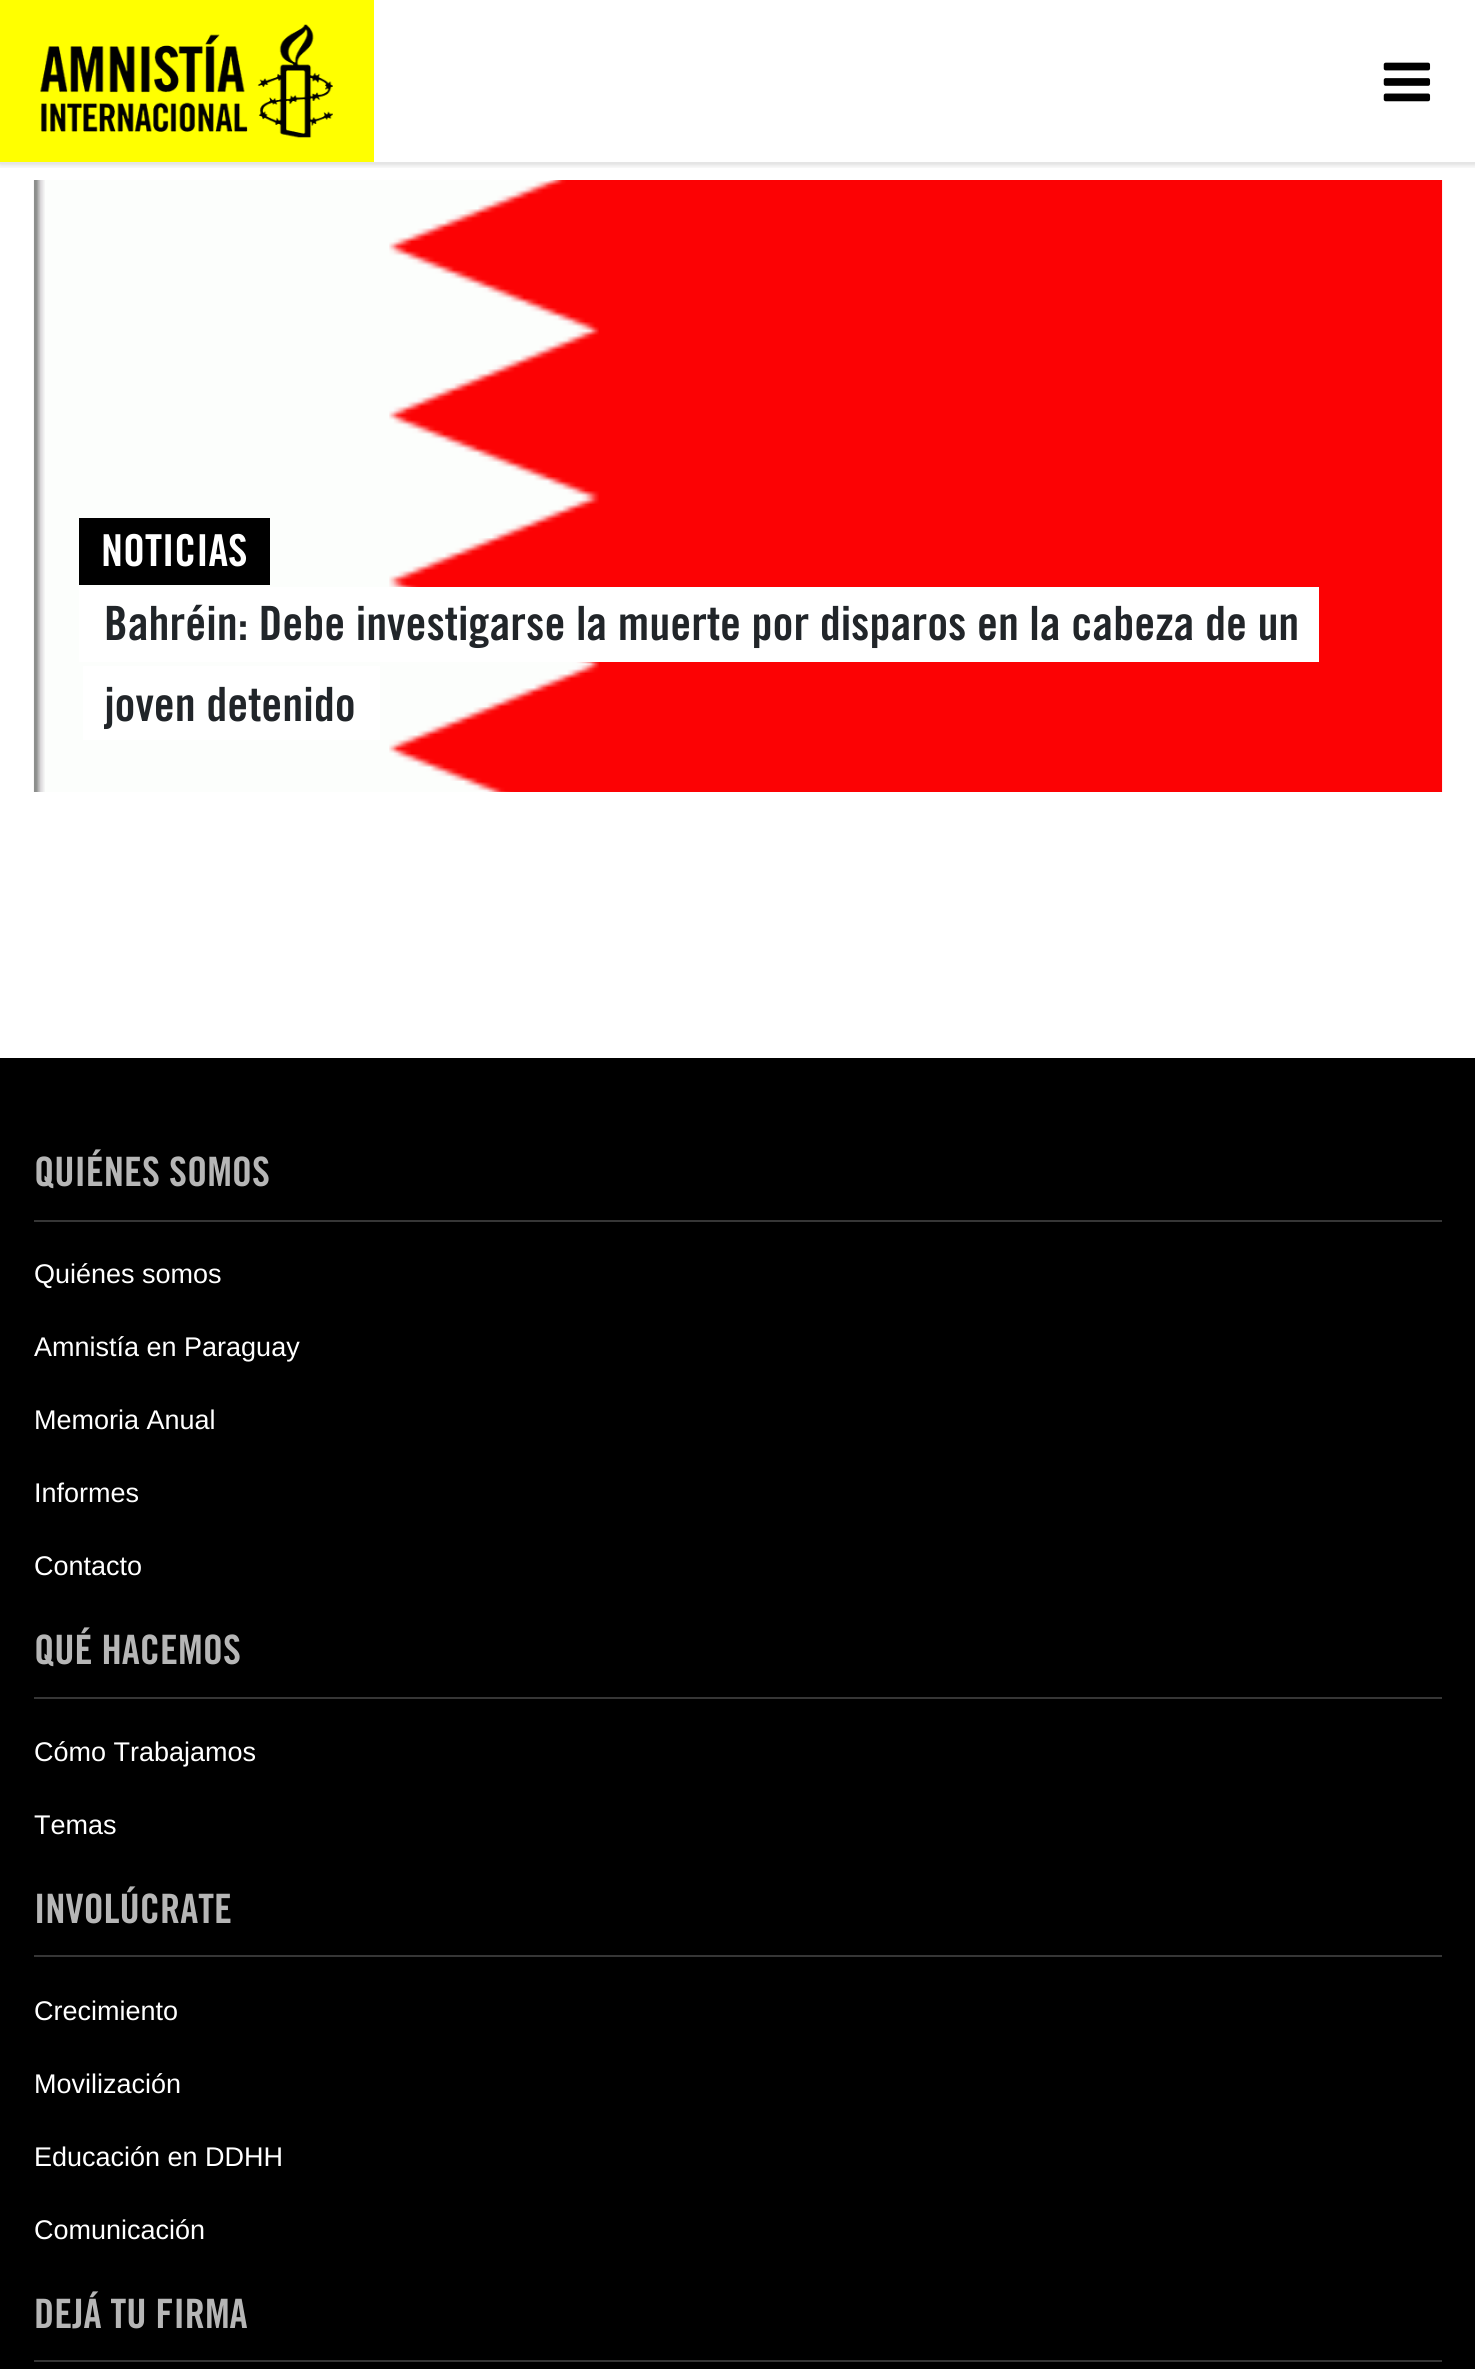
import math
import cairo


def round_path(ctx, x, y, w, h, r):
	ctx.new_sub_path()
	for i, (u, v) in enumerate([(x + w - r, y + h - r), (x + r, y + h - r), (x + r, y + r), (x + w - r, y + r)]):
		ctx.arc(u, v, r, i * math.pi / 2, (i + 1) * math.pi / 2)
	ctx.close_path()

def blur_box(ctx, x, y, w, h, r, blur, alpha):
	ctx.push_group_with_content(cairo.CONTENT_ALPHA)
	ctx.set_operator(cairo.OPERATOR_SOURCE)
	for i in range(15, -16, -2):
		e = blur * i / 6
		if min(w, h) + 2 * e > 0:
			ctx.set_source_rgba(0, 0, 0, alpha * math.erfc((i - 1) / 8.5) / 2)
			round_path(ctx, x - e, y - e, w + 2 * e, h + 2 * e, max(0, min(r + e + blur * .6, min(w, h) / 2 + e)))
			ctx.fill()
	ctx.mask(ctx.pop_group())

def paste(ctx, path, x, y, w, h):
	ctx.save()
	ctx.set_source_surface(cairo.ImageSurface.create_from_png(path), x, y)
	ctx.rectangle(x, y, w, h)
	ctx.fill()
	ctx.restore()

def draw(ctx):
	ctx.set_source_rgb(1, 1, 1)
	ctx.paint()
	ctx.save()
	ctx.rectangle(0, 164, 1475, 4)
	ctx.clip()
	ctx.set_source_rgb(0, 0, 0)
	blur_box(ctx, 0, 0, 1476, 164, 0, 3.5, 0.2)
	ctx.restore()
	ctx.set_source_rgb(0.898, 0.898, 0.898)
	ctx.rectangle(0, 162, 1475, 2)
	ctx.fill()
	ctx.set_source_rgb(1, 1, 0)
	ctx.rectangle(0, 0, 374, 162)
	ctx.fill()
	paste(ctx, 'media/1.png', 40, 24, 293, 114)
	paste(ctx, 'media/2.png', 1383, 62, 48, 40)
	paste(ctx, 'media/3.png', 33, 180, 1410, 612)
	ctx.set_source_rgb(0, 0, 0)
	ctx.rectangle(79, 518, 191, 67)
	ctx.fill()
	ctx.select_font_face('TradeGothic', cairo.FONT_SLANT_NORMAL, cairo.FONT_WEIGHT_BOLD)
	ctx.set_font_size(44)
	ctx.set_source_rgb(1, 1, 1)
	ctx.move_to(101, 566)
	ctx.show_text('NOTICIAS')
	ctx.rectangle(99, 587, 1199, 75)
	ctx.fill()
	ctx.set_font_size(47.25)
	ctx.set_source_rgb(0.129, 0.145, 0.161)
	ctx.move_to(104, 640)
	ctx.show_text('Bahréin: Debe investigarse la muerte por disparos en la cabeza de un')
	ctx.set_source_rgb(1, 1, 1)
	ctx.new_path()
	ctx.move_to(79, 587)
	ctx.line_to(79, 662)
	ctx.line_to(1278, 662)
	ctx.line_to(99, 662)
	ctx.line_to(99, 587)
	ctx.line_to(1278, 587)
	ctx.close_path()
	ctx.fill()
	ctx.new_path()
	ctx.move_to(119, 587)
	ctx.line_to(1298, 587)
	ctx.line_to(1298, 662)
	ctx.line_to(119, 662)
	ctx.line_to(1319, 662)
	ctx.line_to(1319, 587)
	ctx.close_path()
	ctx.fill()
	ctx.rectangle(83, 666, 21, 74)
	ctx.fill()
	ctx.rectangle(104, 666, 276, 74)
	ctx.fill()
	ctx.set_source_rgb(0.129, 0.145, 0.161)
	ctx.move_to(104, 721)
	ctx.show_text('joven detenido')
	ctx.set_source_rgb(0, 0, 0)
	ctx.rectangle(0, 1058, 1475, 1311)
	ctx.fill()
	ctx.set_source_rgb(0.212, 0.212, 0.212)
	ctx.rectangle(34, 1220, 1408, 2)
	ctx.fill()
	ctx.set_font_size(40.5)
	ctx.set_source_rgb(0.714, 0.714, 0.714)
	ctx.move_to(34, 1186)
	ctx.show_text('QUIÉNES SOMOS')
	ctx.select_font_face('Liberation Sans')
	ctx.set_font_size(27)
	ctx.set_source_rgb(1, 1, 1)
	for x, y, s in [
		(34, 1283, 'Quiénes somos'),
		(34, 1356, 'Amnistía en Paraguay'),
		(34, 1429, 'Memoria Anual'),
		(34, 1502, 'Informes'),
		(34, 1575, 'Contacto'),
	]:
		ctx.move_to(x, y)
		ctx.show_text(s)
	ctx.set_source_rgb(0.212, 0.212, 0.212)
	ctx.rectangle(34, 1697, 1408, 2)
	ctx.fill()
	ctx.select_font_face('TradeGothic', cairo.FONT_SLANT_NORMAL, cairo.FONT_WEIGHT_BOLD)
	ctx.set_font_size(40.5)
	ctx.set_source_rgb(0.714, 0.714, 0.714)
	ctx.move_to(34, 1664)
	ctx.show_text('QUÉ HACEMOS')
	ctx.select_font_face('Liberation Sans')
	ctx.set_font_size(27)
	ctx.set_source_rgb(1, 1, 1)
	ctx.move_to(34, 1761)
	ctx.show_text('Cómo Trabajamos')
	ctx.move_to(34, 1834)
	ctx.show_text('Temas')
	ctx.set_source_rgb(0.212, 0.212, 0.212)
	ctx.rectangle(34, 1955, 1408, 2)
	ctx.fill()
	ctx.select_font_face('TradeGothic', cairo.FONT_SLANT_NORMAL, cairo.FONT_WEIGHT_BOLD)
	ctx.set_font_size(40.5)
	ctx.set_source_rgb(0.714, 0.714, 0.714)
	ctx.move_to(34, 1923)
	ctx.show_text('INVOLÚCRATE')
	ctx.select_font_face('Liberation Sans')
	ctx.set_font_size(27)
	ctx.set_source_rgb(1, 1, 1)
	for x, y, s in [
		(34, 2020, 'Crecimiento'),
		(34, 2093, 'Movilización'),
		(34, 2166, 'Educación en DDHH'),
		(34, 2239, 'Comunicación'),
	]:
		ctx.move_to(x, y)
		ctx.show_text(s)
	ctx.set_source_rgb(0.212, 0.212, 0.212)
	ctx.rectangle(34, 2360, 1408, 2)
	ctx.fill()
	ctx.select_font_face('TradeGothic', cairo.FONT_SLANT_NORMAL, cairo.FONT_WEIGHT_BOLD)
	ctx.set_font_size(40.5)
	ctx.set_source_rgb(0.714, 0.714, 0.714)
	ctx.move_to(34, 2328)
	ctx.show_text('DEJÁ TU FIRMA')


surface = cairo.ImageSurface(cairo.FORMAT_RGB24, 1475, 2369)
ctx = cairo.Context(surface)
options = cairo.FontOptions()
options.set_hint_metrics(cairo.HINT_METRICS_OFF)
options.set_hint_style(cairo.HINT_STYLE_NONE)
ctx.set_font_options(options)
ctx.set_miter_limit(4)
draw(ctx)
surface.write_to_png('image.png')
